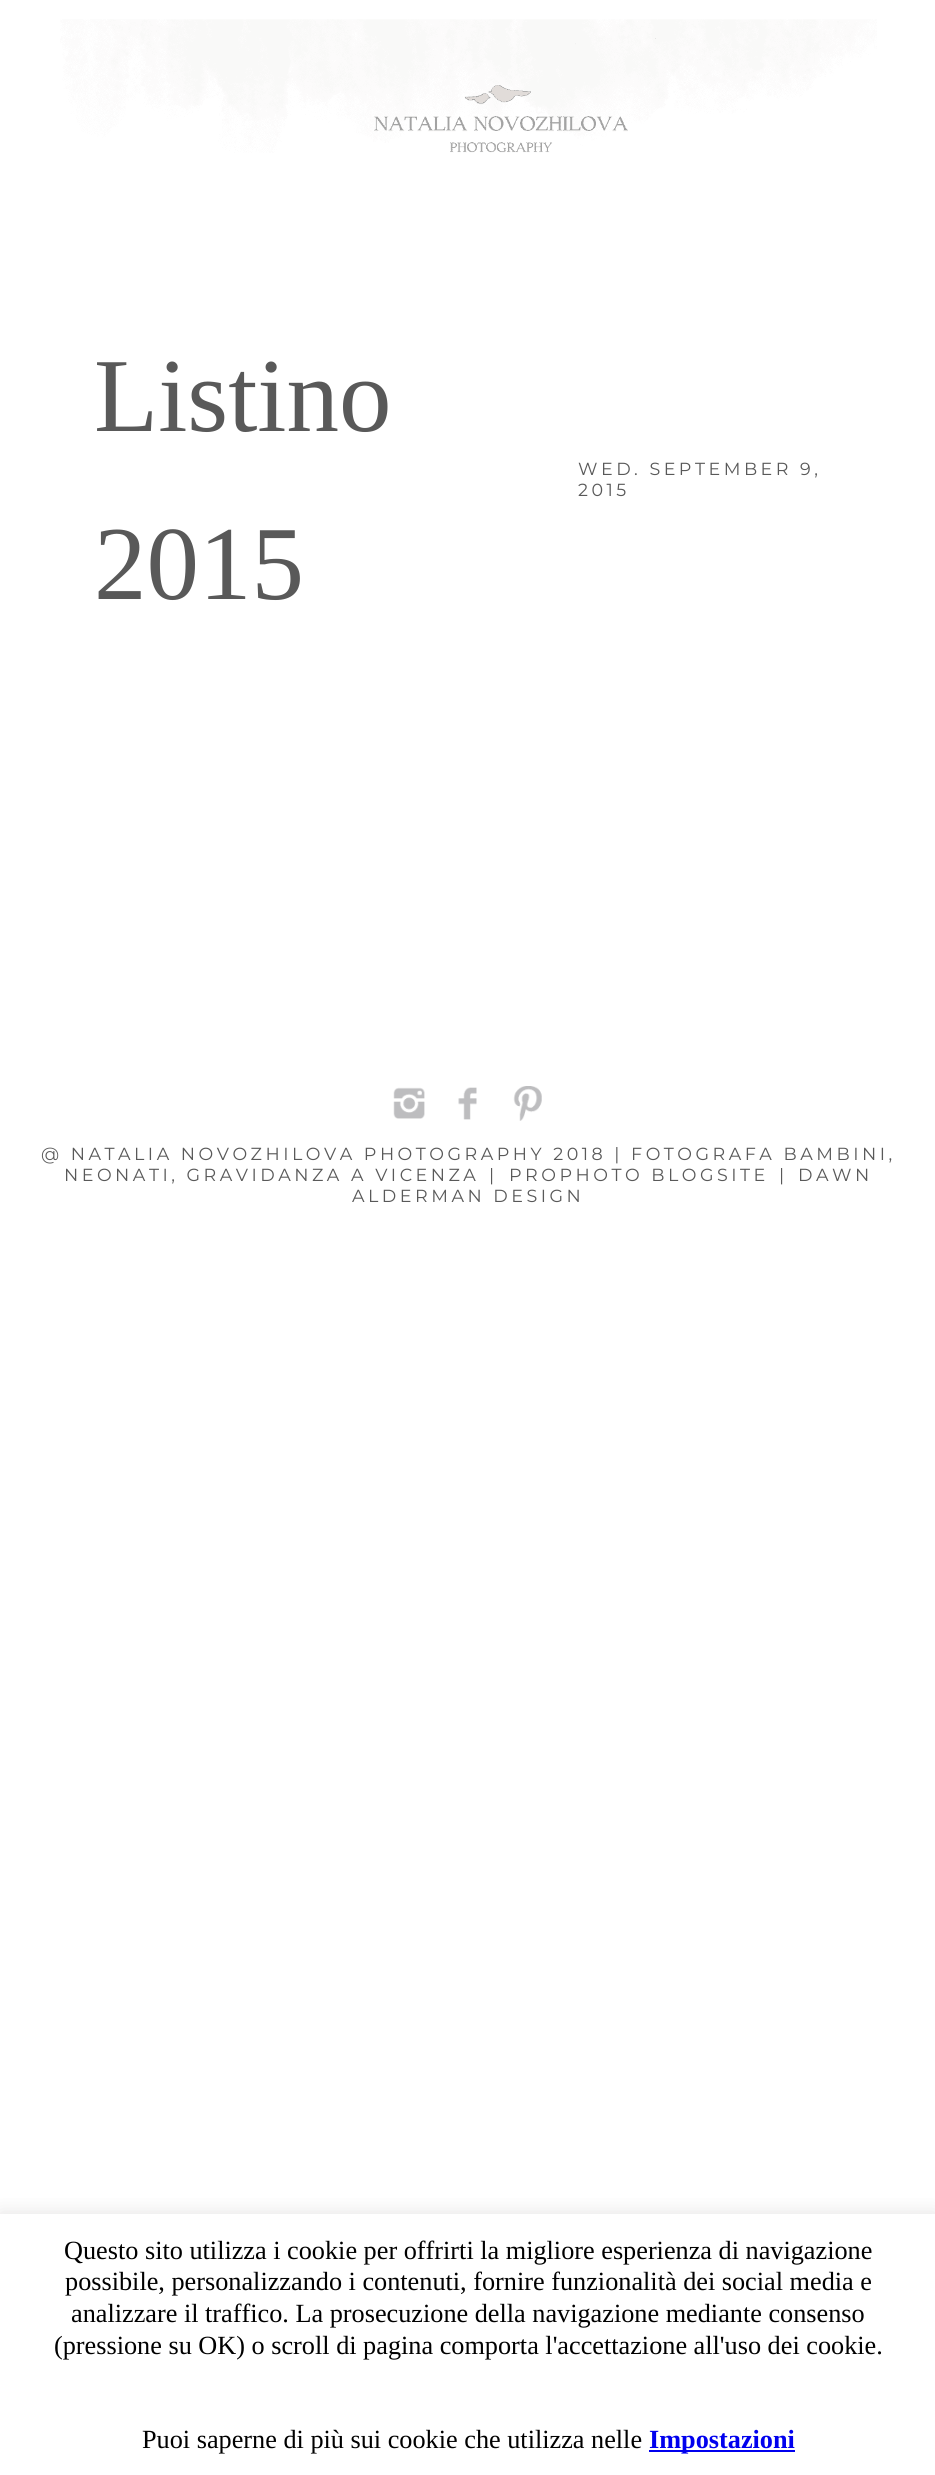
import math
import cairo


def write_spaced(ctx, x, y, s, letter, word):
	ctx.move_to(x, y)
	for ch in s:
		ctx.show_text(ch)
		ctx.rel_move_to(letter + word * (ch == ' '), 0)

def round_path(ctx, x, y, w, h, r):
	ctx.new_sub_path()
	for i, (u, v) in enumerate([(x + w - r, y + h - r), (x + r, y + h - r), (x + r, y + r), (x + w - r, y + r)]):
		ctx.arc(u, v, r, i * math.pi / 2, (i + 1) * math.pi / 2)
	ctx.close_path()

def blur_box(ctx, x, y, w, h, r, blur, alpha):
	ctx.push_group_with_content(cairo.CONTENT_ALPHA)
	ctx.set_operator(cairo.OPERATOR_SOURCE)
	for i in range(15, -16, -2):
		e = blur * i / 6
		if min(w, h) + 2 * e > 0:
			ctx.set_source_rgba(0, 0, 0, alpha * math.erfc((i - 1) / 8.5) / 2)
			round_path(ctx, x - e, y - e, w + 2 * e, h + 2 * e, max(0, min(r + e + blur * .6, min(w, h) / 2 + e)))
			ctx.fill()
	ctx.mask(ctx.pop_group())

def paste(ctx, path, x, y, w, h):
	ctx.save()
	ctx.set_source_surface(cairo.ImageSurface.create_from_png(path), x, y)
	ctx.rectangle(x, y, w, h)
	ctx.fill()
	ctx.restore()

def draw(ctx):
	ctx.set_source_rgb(1, 1, 1)
	ctx.paint()
	paste(ctx, 'media/1.png', 60, 19, 817, 134)
	ctx.select_font_face('Liberation Serif')
	ctx.set_font_size(105)
	ctx.set_source_rgb(0.349, 0.349, 0.349)
	ctx.move_to(94, 431)
	ctx.show_text('Listino')
	ctx.move_to(94, 599)
	ctx.show_text('2015')
	ctx.select_font_face('Montserrat Thin')
	ctx.set_font_size(17.5)
	write_spaced(ctx, 578, 475, 'WED. SEPTEMBER 9,', 3.5, 0)
	write_spaced(ctx, 578, 496, '2015', 3.5, 0)
	paste(ctx, 'media/2.png', 393, 1087, 32, 32)
	paste(ctx, 'media/3.png', 458, 1087, 19, 33)
	paste(ctx, 'media/4.png', 513, 1086, 29, 35)
	for x, y, s in [
		(41, 1160, '@ NATALIA NOVOZHILOVA PHOTOGRAPHY 2018 | FOTOGRAFA BAMBINI,'),
		(64, 1181, 'NEONATI, GRAVIDANZA A VICENZA'),
		(489, 1181, '|'),
		(509, 1181, 'PROPHOTO BLOGSITE'),
		(779, 1181, '|'),
		(798, 1181, 'DAWN'),
		(352, 1202, 'ALDERMAN DESIGN'),
	]:
		write_spaced(ctx, x, y, s, 3.5, 0)
	ctx.save()
	ctx.rectangle(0, 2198, 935, 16)
	ctx.clip()
	ctx.set_source_rgb(0.675, 0.671, 0.671)
	blur_box(ctx, 0, 2212, 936, 263, 0, 9, 0.3)
	ctx.restore()
	ctx.select_font_face('Liberation Serif')
	ctx.set_font_size(26.25)
	ctx.set_source_rgb(0, 0, 0)
	for x, y, s in [
		(64, 2259, 'Questo sito utilizza i cookie per offrirti la migliore esperienza di navigazione'),
		(65, 2290, 'possibile, personalizzando i contenuti, fornire funzionalità dei social media e'),
		(71, 2322, 'analizzare il traffico. La prosecuzione della navigazione mediante consenso'),
		(54, 2354, '(pressione su OK) o scroll di pagina comporta l\'accettazione all\'uso dei cookie.'),
		(142, 2448, 'Puoi saperne di più sui cookie che utilizza nelle'),
	]:
		ctx.move_to(x, y)
		ctx.show_text(s)
	ctx.set_source_rgb(0, 0, 0.933)
	ctx.rectangle(649, 2450, 146, 2)
	ctx.fill()
	ctx.select_font_face('Liberation Serif', cairo.FONT_SLANT_NORMAL, cairo.FONT_WEIGHT_BOLD)
	ctx.move_to(649, 2448)
	ctx.show_text('Impostazioni')


surface = cairo.ImageSurface(cairo.FORMAT_RGB24, 935, 2475)
ctx = cairo.Context(surface)
options = cairo.FontOptions()
options.set_hint_metrics(cairo.HINT_METRICS_OFF)
options.set_hint_style(cairo.HINT_STYLE_NONE)
ctx.set_font_options(options)
ctx.set_miter_limit(4)
draw(ctx)
surface.write_to_png('image.png')
